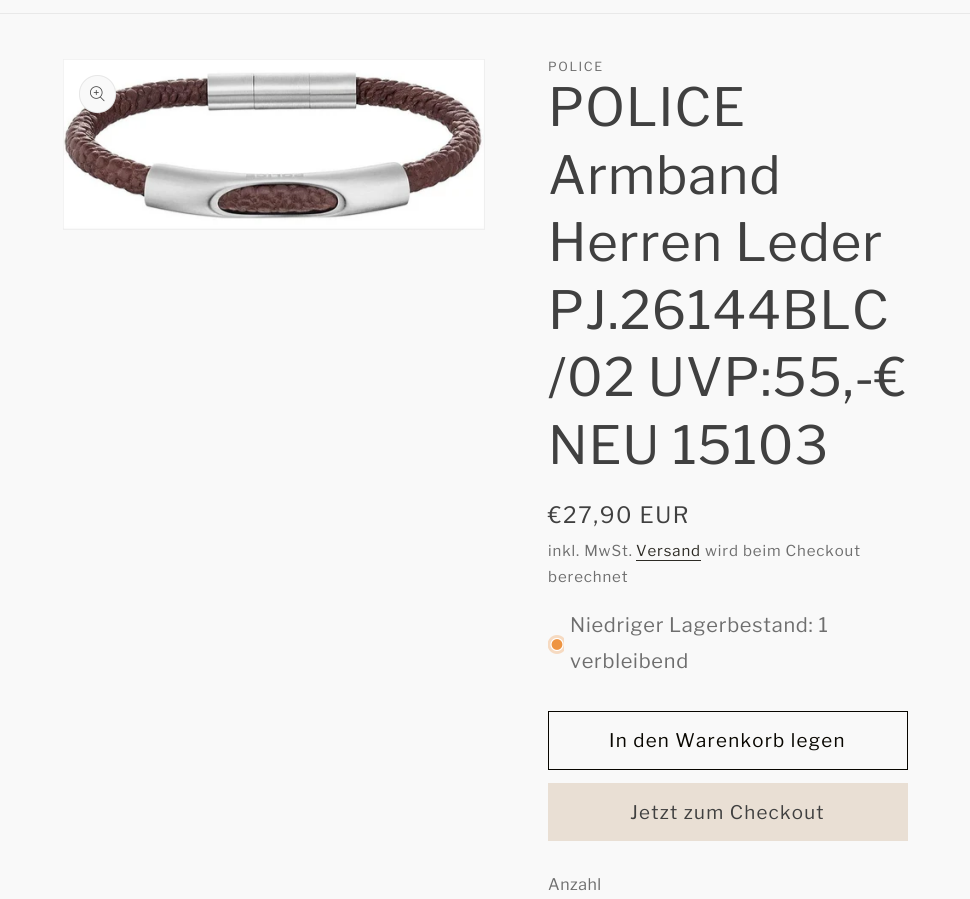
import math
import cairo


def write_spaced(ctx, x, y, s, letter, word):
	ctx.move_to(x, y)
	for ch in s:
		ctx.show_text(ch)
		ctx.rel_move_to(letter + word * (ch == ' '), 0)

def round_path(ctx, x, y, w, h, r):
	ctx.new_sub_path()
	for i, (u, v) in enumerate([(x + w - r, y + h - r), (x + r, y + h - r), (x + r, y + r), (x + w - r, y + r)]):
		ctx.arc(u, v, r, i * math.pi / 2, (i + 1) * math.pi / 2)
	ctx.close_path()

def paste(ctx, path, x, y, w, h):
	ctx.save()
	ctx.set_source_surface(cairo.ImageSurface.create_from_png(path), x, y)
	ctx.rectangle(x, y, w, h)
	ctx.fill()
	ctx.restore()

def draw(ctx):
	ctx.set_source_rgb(0.973, 0.973, 0.973)
	ctx.paint()
	ctx.set_source_rgb(0.914, 0.914, 0.914)
	ctx.rectangle(0, 13, 970, 1)
	ctx.fill()
	ctx.rectangle(63.5, 59.5, 421, 170)
	ctx.set_source_rgb(0.937, 0.937, 0.937)
	ctx.set_line_width(1)
	ctx.stroke()
	paste(ctx, 'media/1.png', 63, 59, 421, 169)
	ctx.set_source_rgb(0.973, 0.973, 0.973)
	round_path(ctx, 79, 75, 37, 38, 18.5)
	ctx.fill()
	round_path(ctx, 79.5, 75.5, 36, 37, 18)
	ctx.set_source_rgba(0.251, 0.251, 0.251, 0.1)
	ctx.stroke()
	paste(ctx, 'media/2.png', 90, 86, 15, 16)
	ctx.select_font_face('Libre Franklin')
	ctx.set_font_size(12.5)
	ctx.set_source_rgb(0.431, 0.431, 0.431)
	write_spaced(ctx, 548, 71, 'POLICE', 1.6, 0)
	ctx.set_font_size(52.5)
	ctx.set_source_rgb(0.251, 0.251, 0.251)
	for x, y, s in [
		(548, 126, 'POLICE'),
		(548, 194, 'Armband'),
		(548, 261, 'Herren Leder'),
		(548, 329, 'PJ.26144BLC'),
		(548, 396, '/02 UVP:55,-€'),
		(548, 464, 'NEU 15103'),
	]:
		write_spaced(ctx, x, y, s, 0.75, 0)
	ctx.set_font_size(22.5)
	write_spaced(ctx, 548, 523, '€27,90 EUR', 1.6, 0)
	ctx.set_font_size(15)
	ctx.set_source_rgb(0.431, 0.431, 0.431)
	write_spaced(ctx, 548, 556, 'inkl. MwSt.', 0.9, 0)
	ctx.set_source_rgb(0.176, 0.169, 0.145)
	write_spaced(ctx, 636, 556, 'Versand', 0.9, 0)
	ctx.rectangle(636, 560, 65, 1)
	ctx.fill()
	ctx.set_source_rgb(0.431, 0.431, 0.431)
	write_spaced(ctx, 705, 556, 'wird beim Checkout', 0.9, 0)
	write_spaced(ctx, 548, 582, 'berechnet', 0.9, 0)
	ctx.set_font_size(20)
	write_spaced(ctx, 570, 632, 'Niedriger Lagerbestand: 1', 0.75, 0)
	ctx.save()
	ctx.rectangle(548, 635, 16, 19)
	ctx.clip()
	ctx.set_source_rgb(0.961, 0.855, 0.757)
	ctx.arc(557, 644.5, 9.5, 0, 2 * math.pi)
	ctx.fill()
	ctx.restore()
	ctx.set_source_rgb(0.933, 0.58, 0.255)
	ctx.arc(557, 644.5, 6, 0, 2 * math.pi)
	ctx.fill_preserve()
	ctx.set_source_rgb(1, 1, 1)
	ctx.set_line_width(1.2)
	ctx.stroke()
	ctx.set_source_rgb(0.431, 0.431, 0.431)
	write_spaced(ctx, 570, 668, 'verbleibend', 0.75, 0)
	ctx.rectangle(548.5, 711.5, 359, 58)
	ctx.set_source_rgb(0.035, 0.027, 0)
	ctx.set_line_width(1)
	ctx.stroke()
	ctx.set_font_size(18.75)
	write_spaced(ctx, 609, 747, 'In den Warenkorb legen', 1.25, 0)
	ctx.set_source_rgb(0.914, 0.875, 0.831)
	ctx.rectangle(548, 783, 360, 58)
	ctx.fill()
	ctx.set_source_rgb(0.251, 0.251, 0.251)
	write_spaced(ctx, 630, 819, 'Jetzt zum Checkout', 1.25, 0)
	ctx.set_font_size(16)
	ctx.set_source_rgb(0.431, 0.431, 0.431)
	write_spaced(ctx, 548, 890, 'Anzahl', 0.5, 0)


surface = cairo.ImageSurface(cairo.FORMAT_RGB24, 970, 899)
ctx = cairo.Context(surface)
options = cairo.FontOptions()
options.set_hint_metrics(cairo.HINT_METRICS_OFF)
options.set_hint_style(cairo.HINT_STYLE_NONE)
ctx.set_font_options(options)
ctx.set_miter_limit(4)
draw(ctx)
surface.write_to_png('image.png')
